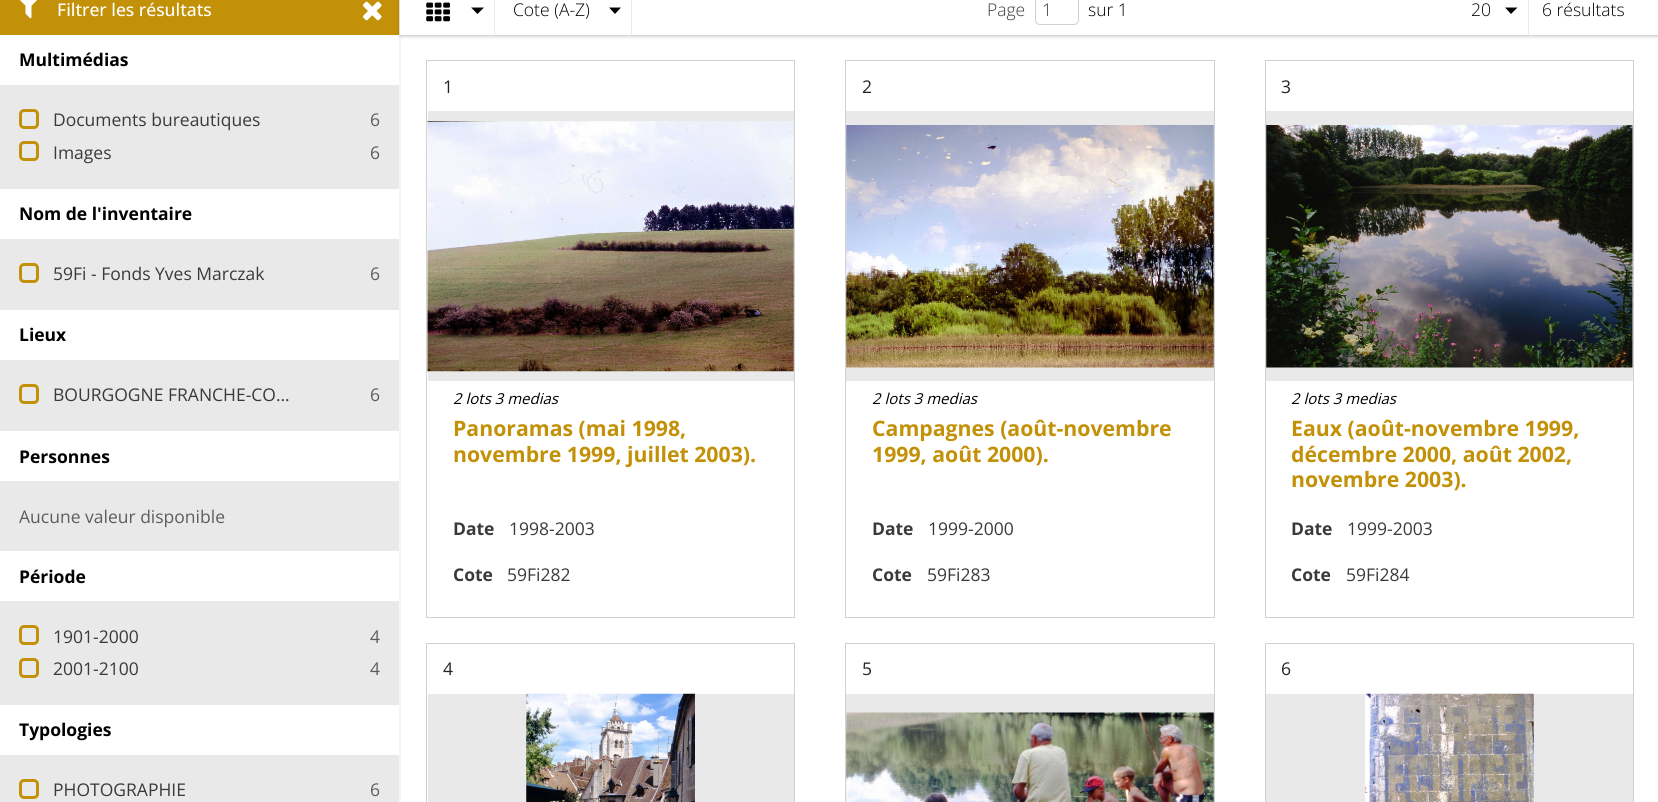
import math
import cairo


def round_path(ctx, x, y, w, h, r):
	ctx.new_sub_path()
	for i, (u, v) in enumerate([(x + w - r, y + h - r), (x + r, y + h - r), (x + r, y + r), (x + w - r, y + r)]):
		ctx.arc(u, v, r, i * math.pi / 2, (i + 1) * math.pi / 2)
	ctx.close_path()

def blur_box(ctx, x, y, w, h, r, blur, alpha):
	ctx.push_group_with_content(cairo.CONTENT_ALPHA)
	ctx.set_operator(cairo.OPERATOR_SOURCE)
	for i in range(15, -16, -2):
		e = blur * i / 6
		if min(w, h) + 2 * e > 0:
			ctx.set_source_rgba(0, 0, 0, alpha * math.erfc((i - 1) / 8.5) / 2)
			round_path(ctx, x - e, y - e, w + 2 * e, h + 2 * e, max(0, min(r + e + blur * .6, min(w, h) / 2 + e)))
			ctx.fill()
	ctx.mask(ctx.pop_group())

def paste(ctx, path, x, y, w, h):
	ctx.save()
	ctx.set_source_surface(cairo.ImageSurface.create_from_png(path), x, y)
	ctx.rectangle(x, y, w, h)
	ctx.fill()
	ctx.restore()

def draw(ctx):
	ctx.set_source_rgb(1, 1, 1)
	ctx.paint()
	ctx.set_source_rgb(0.914, 0.914, 0.914)
	ctx.rectangle(0, 85, 399, 717)
	ctx.fill()
	ctx.set_source_rgb(0.961, 0.961, 0.961)
	ctx.rectangle(399, 0, 1, 802)
	ctx.fill()
	ctx.set_source_rgb(0.765, 0.569, 0.031)
	ctx.rectangle(0, 0, 399, 35)
	ctx.fill()
	paste(ctx, 'media/1.png', 20, 0, 17, 19)
	ctx.select_font_face('Open Sans Medium')
	ctx.set_font_size(17.5)
	ctx.set_source_rgb(1, 1, 1)
	ctx.move_to(57, 16)
	ctx.show_text('Filtrer les résultats')
	paste(ctx, 'media/2.png', 363, 1, 19, 20)
	ctx.select_font_face('Open Sans', cairo.FONT_SLANT_NORMAL, cairo.FONT_WEIGHT_BOLD)
	ctx.set_source_rgb(0, 0, 0)
	ctx.move_to(19, 66)
	ctx.show_text('Multimédias')
	round_path(ctx, 20.5, 110.5, 17, 17, 3.5)
	ctx.set_source_rgb(0.765, 0.569, 0.031)
	ctx.set_line_width(3)
	ctx.stroke()
	ctx.select_font_face('Open Sans')
	ctx.set_source_rgb(0.227, 0.227, 0.227)
	ctx.move_to(53, 126)
	ctx.show_text('Documents bureautiques')
	ctx.set_source_rgb(0.365, 0.365, 0.365)
	ctx.move_to(370, 126)
	ctx.show_text('6')
	round_path(ctx, 20.5, 142.5, 17, 17, 3.5)
	ctx.set_source_rgb(0.765, 0.569, 0.031)
	ctx.stroke()
	ctx.set_source_rgb(0.227, 0.227, 0.227)
	ctx.move_to(53, 159)
	ctx.show_text('Images')
	ctx.set_source_rgb(0.365, 0.365, 0.365)
	ctx.move_to(370, 159)
	ctx.show_text('6')
	ctx.set_source_rgb(1, 1, 1)
	ctx.rectangle(0, 189, 399, 50)
	ctx.fill()
	ctx.select_font_face('Open Sans', cairo.FONT_SLANT_NORMAL, cairo.FONT_WEIGHT_BOLD)
	ctx.set_source_rgb(0, 0, 0)
	ctx.move_to(19, 220)
	ctx.show_text('Nom de l\'inventaire')
	round_path(ctx, 20.5, 264.5, 17, 17, 3.5)
	ctx.set_source_rgb(0.765, 0.569, 0.031)
	ctx.stroke()
	ctx.select_font_face('Open Sans')
	ctx.set_source_rgb(0.227, 0.227, 0.227)
	ctx.move_to(53, 280)
	ctx.show_text('59Fi - Fonds Yves Marczak')
	ctx.set_source_rgb(0.365, 0.365, 0.365)
	ctx.move_to(370, 280)
	ctx.show_text('6')
	ctx.set_source_rgb(1, 1, 1)
	ctx.rectangle(0, 310, 399, 50)
	ctx.fill()
	ctx.select_font_face('Open Sans', cairo.FONT_SLANT_NORMAL, cairo.FONT_WEIGHT_BOLD)
	ctx.set_source_rgb(0, 0, 0)
	ctx.move_to(19, 341)
	ctx.show_text('Lieux')
	round_path(ctx, 20.5, 385.5, 17, 17, 3.5)
	ctx.set_source_rgb(0.765, 0.569, 0.031)
	ctx.stroke()
	ctx.select_font_face('Open Sans')
	ctx.set_source_rgb(0.227, 0.227, 0.227)
	ctx.move_to(53, 401)
	ctx.show_text('BOURGOGNE FRANCHE-CO…')
	ctx.set_source_rgb(0.365, 0.365, 0.365)
	ctx.move_to(370, 401)
	ctx.show_text('6')
	ctx.set_source_rgb(1, 1, 1)
	ctx.rectangle(0, 431, 399, 50)
	ctx.fill()
	ctx.select_font_face('Open Sans', cairo.FONT_SLANT_NORMAL, cairo.FONT_WEIGHT_BOLD)
	ctx.set_source_rgb(0, 0, 0)
	ctx.move_to(19, 463)
	ctx.show_text('Personnes')
	ctx.select_font_face('Open Sans')
	ctx.set_source_rgb(0.365, 0.365, 0.365)
	ctx.move_to(19, 523)
	ctx.show_text('Aucune valeur disponible')
	ctx.set_source_rgb(1, 1, 1)
	ctx.rectangle(0, 551, 399, 50)
	ctx.fill()
	ctx.select_font_face('Open Sans', cairo.FONT_SLANT_NORMAL, cairo.FONT_WEIGHT_BOLD)
	ctx.set_source_rgb(0, 0, 0)
	ctx.move_to(19, 583)
	ctx.show_text('Période')
	round_path(ctx, 20.5, 626.5, 17, 17, 3.5)
	ctx.set_source_rgb(0.765, 0.569, 0.031)
	ctx.stroke()
	ctx.select_font_face('Open Sans')
	ctx.set_source_rgb(0.227, 0.227, 0.227)
	ctx.move_to(53, 643)
	ctx.show_text('1901-2000')
	ctx.set_source_rgb(0.365, 0.365, 0.365)
	ctx.move_to(370, 643)
	ctx.show_text('4')
	round_path(ctx, 20.5, 659.5, 17, 17, 3.5)
	ctx.set_source_rgb(0.765, 0.569, 0.031)
	ctx.stroke()
	ctx.set_source_rgb(0.227, 0.227, 0.227)
	ctx.move_to(53, 675)
	ctx.show_text('2001-2100')
	ctx.set_source_rgb(0.365, 0.365, 0.365)
	ctx.move_to(370, 675)
	ctx.show_text('4')
	ctx.set_source_rgb(1, 1, 1)
	ctx.rectangle(0, 705, 399, 50)
	ctx.fill()
	ctx.select_font_face('Open Sans', cairo.FONT_SLANT_NORMAL, cairo.FONT_WEIGHT_BOLD)
	ctx.set_source_rgb(0, 0, 0)
	ctx.move_to(19, 736)
	ctx.show_text('Typologies')
	round_path(ctx, 20.5, 780.5, 17, 17, 3.5)
	ctx.set_source_rgb(0.765, 0.569, 0.031)
	ctx.stroke()
	ctx.select_font_face('Open Sans')
	ctx.set_source_rgb(0.227, 0.227, 0.227)
	ctx.move_to(53, 796)
	ctx.show_text('PHOTOGRAPHIE')
	ctx.set_source_rgb(0.365, 0.365, 0.365)
	ctx.move_to(370, 796)
	ctx.show_text('6')
	ctx.set_source_rgb(0.961, 0.961, 0.961)
	ctx.rectangle(400, 35, 1, 767)
	ctx.fill()
	ctx.save()
	ctx.set_fill_rule(cairo.FILL_RULE_EVEN_ODD)
	ctx.new_path()
	ctx.move_to(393, 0)
	ctx.line_to(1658, 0)
	ctx.line_to(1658, 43)
	ctx.line_to(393, 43)
	ctx.close_path()
	ctx.move_to(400, -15)
	ctx.line_to(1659, -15)
	ctx.line_to(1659, 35)
	ctx.line_to(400, 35)
	ctx.close_path()
	ctx.clip()
	ctx.set_source_rgb(0, 0, 0)
	blur_box(ctx, 400, -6, 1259, 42, 0, 2, 0.25)
	ctx.restore()
	ctx.set_source_rgb(0.914, 0.914, 0.914)
	ctx.rectangle(494, 0, 1, 35)
	ctx.fill()
	paste(ctx, 'media/3.png', 426, 2, 24, 20)
	ctx.set_source_rgb(0, 0, 0)
	ctx.new_path()
	ctx.move_to(471, 7.5)
	ctx.line_to(484, 7.5)
	ctx.line_to(477.5, 14)
	ctx.close_path()
	ctx.fill()
	ctx.set_source_rgb(0.914, 0.914, 0.914)
	ctx.rectangle(631, 0, 1, 35)
	ctx.fill()
	ctx.select_font_face('Open Sans Light')
	ctx.set_source_rgb(0, 0, 0)
	ctx.move_to(513, 16)
	ctx.show_text('Cote (A-Z)')
	ctx.new_path()
	ctx.move_to(609, 7.5)
	ctx.line_to(621, 7.5)
	ctx.line_to(615, 14)
	ctx.close_path()
	ctx.fill()
	ctx.set_source_rgb(0.227, 0.227, 0.227)
	ctx.move_to(987, 16)
	ctx.show_text('Page')
	round_path(ctx, 1035.5, -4.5, 43, 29, 4.5)
	ctx.set_source_rgb(0.82, 0.82, 0.82)
	ctx.set_line_width(1)
	ctx.stroke()
	ctx.set_source_rgb(0.227, 0.227, 0.227)
	ctx.move_to(1042, 16)
	ctx.show_text('1')
	ctx.set_source_rgb(0, 0, 0)
	ctx.move_to(1088, 16)
	ctx.show_text('sur 1')
	ctx.set_source_rgb(0.914, 0.914, 0.914)
	ctx.rectangle(1528, 0, 1, 35)
	ctx.fill()
	ctx.set_source_rgb(0, 0, 0)
	ctx.move_to(1471, 16)
	ctx.show_text('20')
	ctx.new_path()
	ctx.move_to(1505, 7.5)
	ctx.line_to(1517.5, 7.5)
	ctx.line_to(1511, 14)
	ctx.close_path()
	ctx.fill()
	ctx.move_to(1542, 16)
	ctx.show_text('6 résultats')
	ctx.rectangle(426.5, 60.5, 368, 557)
	ctx.set_source_rgb(0.82, 0.82, 0.82)
	ctx.stroke()
	ctx.select_font_face('Open Sans')
	ctx.set_source_rgb(0.129, 0.145, 0.161)
	ctx.move_to(443, 93)
	ctx.show_text('1')
	ctx.set_source_rgb(0.914, 0.914, 0.914)
	ctx.rectangle(428, 111, 366, 270)
	ctx.fill()
	paste(ctx, 'media/4.png', 427, 121, 367, 251)
	ctx.select_font_face('Open Sans', cairo.FONT_SLANT_ITALIC)
	ctx.set_font_size(15)
	ctx.set_source_rgb(0, 0, 0)
	ctx.move_to(453, 404)
	ctx.show_text('2 lots 3 medias')
	ctx.select_font_face('Open Sans', cairo.FONT_SLANT_NORMAL, cairo.FONT_WEIGHT_BOLD)
	ctx.set_font_size(21.25)
	ctx.set_source_rgb(0.765, 0.569, 0.031)
	ctx.move_to(453, 436)
	ctx.show_text('Panoramas (mai 1998,')
	ctx.move_to(453, 462)
	ctx.show_text('novembre 1999, juillet 2003).')
	ctx.set_font_size(17.5)
	ctx.set_source_rgb(0.227, 0.227, 0.227)
	ctx.move_to(453, 535)
	ctx.show_text('Date')
	ctx.select_font_face('Open Sans')
	ctx.move_to(509, 535)
	ctx.show_text('1998-2003')
	ctx.select_font_face('Open Sans', cairo.FONT_SLANT_NORMAL, cairo.FONT_WEIGHT_BOLD)
	ctx.move_to(453, 581)
	ctx.show_text('Cote')
	ctx.select_font_face('Open Sans')
	ctx.move_to(507, 581)
	ctx.show_text('59Fi282')
	ctx.rectangle(845.5, 60.5, 369, 557)
	ctx.set_source_rgb(0.82, 0.82, 0.82)
	ctx.stroke()
	ctx.set_source_rgb(0.129, 0.145, 0.161)
	ctx.move_to(862, 93)
	ctx.show_text('2')
	ctx.set_source_rgb(0.914, 0.914, 0.914)
	ctx.rectangle(846, 111, 368, 270)
	ctx.fill()
	paste(ctx, 'media/5.png', 846, 125, 368, 243)
	ctx.select_font_face('Open Sans', cairo.FONT_SLANT_ITALIC)
	ctx.set_font_size(15)
	ctx.set_source_rgb(0, 0, 0)
	ctx.move_to(872, 404)
	ctx.show_text('2 lots 3 medias')
	ctx.select_font_face('Open Sans', cairo.FONT_SLANT_NORMAL, cairo.FONT_WEIGHT_BOLD)
	ctx.set_font_size(21.25)
	ctx.set_source_rgb(0.765, 0.569, 0.031)
	ctx.move_to(872, 436)
	ctx.show_text('Campagnes (août-novembre')
	ctx.move_to(872, 462)
	ctx.show_text('1999, août 2000).')
	ctx.set_font_size(17.5)
	ctx.set_source_rgb(0.227, 0.227, 0.227)
	ctx.move_to(872, 535)
	ctx.show_text('Date')
	ctx.select_font_face('Open Sans')
	ctx.move_to(928, 535)
	ctx.show_text('1999-2000')
	ctx.select_font_face('Open Sans', cairo.FONT_SLANT_NORMAL, cairo.FONT_WEIGHT_BOLD)
	ctx.move_to(872, 581)
	ctx.show_text('Cote')
	ctx.select_font_face('Open Sans')
	ctx.move_to(927, 581)
	ctx.show_text('59Fi283')
	ctx.rectangle(1265.5, 60.5, 368, 557)
	ctx.set_source_rgb(0.82, 0.82, 0.82)
	ctx.stroke()
	ctx.set_source_rgb(0.129, 0.145, 0.161)
	ctx.move_to(1281, 93)
	ctx.show_text('3')
	ctx.set_source_rgb(0.914, 0.914, 0.914)
	ctx.rectangle(1266, 111, 367, 270)
	ctx.fill()
	paste(ctx, 'media/6.png', 1266, 125, 367, 243)
	ctx.select_font_face('Open Sans', cairo.FONT_SLANT_ITALIC)
	ctx.set_font_size(15)
	ctx.set_source_rgb(0, 0, 0)
	ctx.move_to(1291, 404)
	ctx.show_text('2 lots 3 medias')
	ctx.select_font_face('Open Sans', cairo.FONT_SLANT_NORMAL, cairo.FONT_WEIGHT_BOLD)
	ctx.set_font_size(21.25)
	ctx.set_source_rgb(0.765, 0.569, 0.031)
	for x, y, s in [
		(1291, 436, 'Eaux (août-novembre 1999,'),
		(1291, 462, 'décembre 2000, août 2002,'),
		(1291, 487, 'novembre 2003).'),
	]:
		ctx.move_to(x, y)
		ctx.show_text(s)
	ctx.set_font_size(17.5)
	ctx.set_source_rgb(0.227, 0.227, 0.227)
	ctx.move_to(1291, 535)
	ctx.show_text('Date')
	ctx.select_font_face('Open Sans')
	ctx.move_to(1347, 535)
	ctx.show_text('1999-2003')
	ctx.select_font_face('Open Sans', cairo.FONT_SLANT_NORMAL, cairo.FONT_WEIGHT_BOLD)
	ctx.move_to(1291, 581)
	ctx.show_text('Cote')
	ctx.select_font_face('Open Sans')
	ctx.move_to(1346, 581)
	ctx.show_text('59Fi284')
	ctx.rectangle(426.5, 643.5, 368, 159)
	ctx.set_source_rgb(0.82, 0.82, 0.82)
	ctx.stroke()
	ctx.set_source_rgb(0.129, 0.145, 0.161)
	ctx.move_to(443, 675)
	ctx.show_text('4')
	ctx.set_source_rgb(0.914, 0.914, 0.914)
	ctx.rectangle(428, 694, 366, 108)
	ctx.fill()
	paste(ctx, 'media/7.png', 526, 693, 169, 109)
	ctx.rectangle(845.5, 643.5, 369, 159)
	ctx.set_source_rgb(0.82, 0.82, 0.82)
	ctx.stroke()
	ctx.set_source_rgb(0.129, 0.145, 0.161)
	ctx.move_to(862, 675)
	ctx.show_text('5')
	ctx.set_source_rgb(0.914, 0.914, 0.914)
	ctx.rectangle(846, 694, 368, 108)
	ctx.fill()
	paste(ctx, 'media/8.png', 846, 712, 368, 90)
	ctx.rectangle(1265.5, 643.5, 368, 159)
	ctx.set_source_rgb(0.82, 0.82, 0.82)
	ctx.stroke()
	ctx.set_source_rgb(0.129, 0.145, 0.161)
	ctx.move_to(1281, 675)
	ctx.show_text('6')
	ctx.set_source_rgb(0.914, 0.914, 0.914)
	ctx.rectangle(1266, 694, 367, 108)
	ctx.fill()
	paste(ctx, 'media/9.png', 1365, 693, 169, 109)


surface = cairo.ImageSurface(cairo.FORMAT_RGB24, 1658, 802)
ctx = cairo.Context(surface)
options = cairo.FontOptions()
options.set_hint_metrics(cairo.HINT_METRICS_OFF)
options.set_hint_style(cairo.HINT_STYLE_NONE)
ctx.set_font_options(options)
ctx.set_miter_limit(4)
draw(ctx)
surface.write_to_png('image.png')
